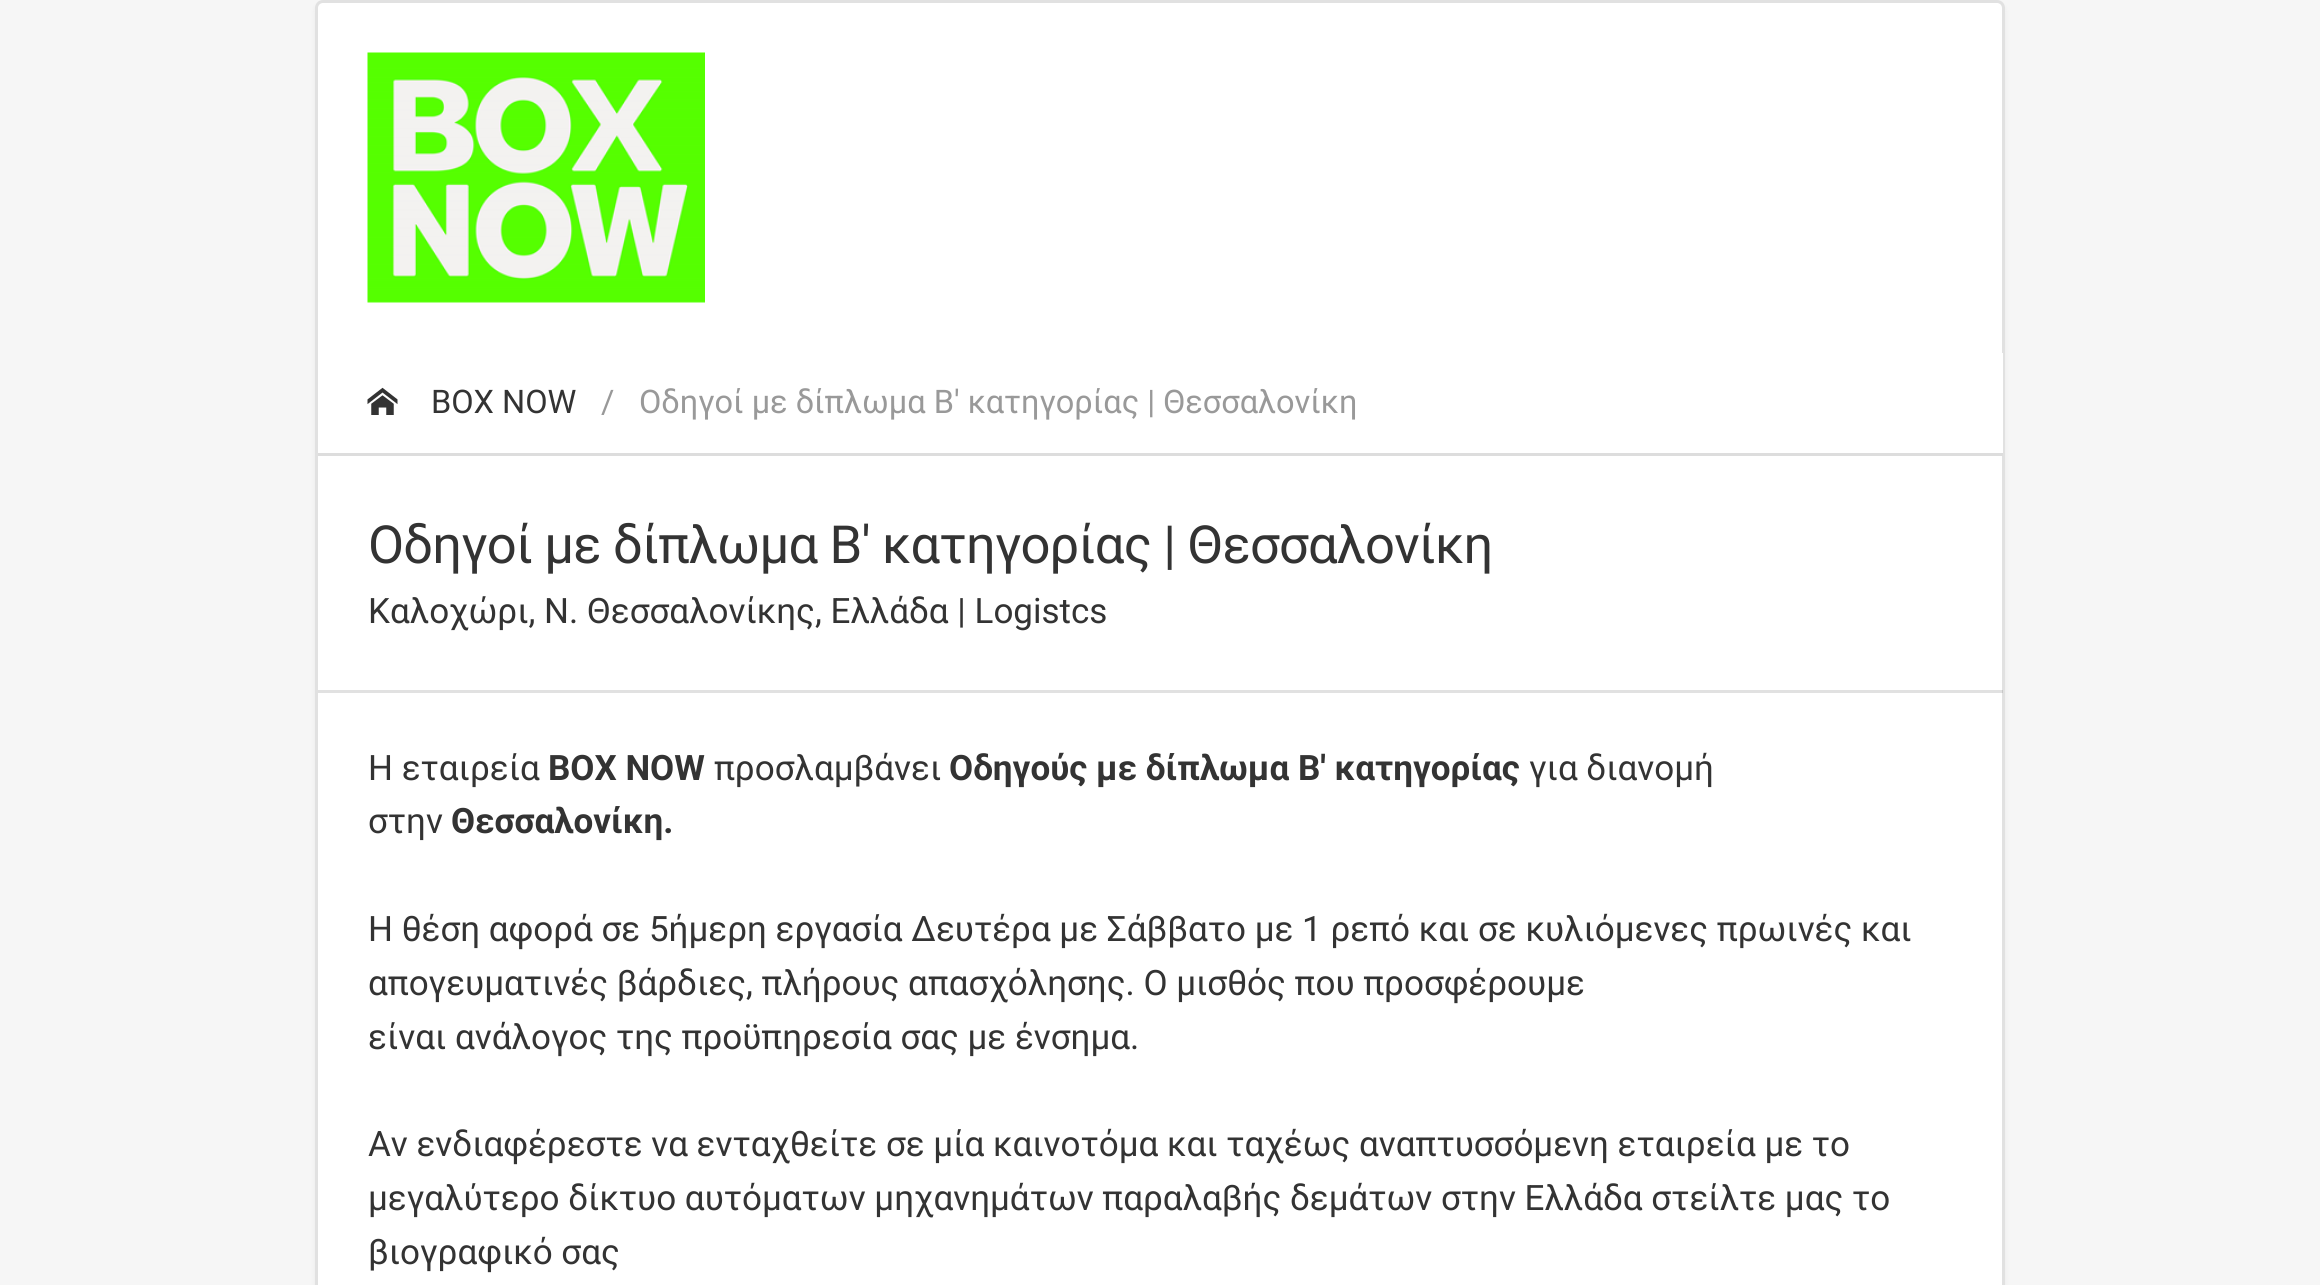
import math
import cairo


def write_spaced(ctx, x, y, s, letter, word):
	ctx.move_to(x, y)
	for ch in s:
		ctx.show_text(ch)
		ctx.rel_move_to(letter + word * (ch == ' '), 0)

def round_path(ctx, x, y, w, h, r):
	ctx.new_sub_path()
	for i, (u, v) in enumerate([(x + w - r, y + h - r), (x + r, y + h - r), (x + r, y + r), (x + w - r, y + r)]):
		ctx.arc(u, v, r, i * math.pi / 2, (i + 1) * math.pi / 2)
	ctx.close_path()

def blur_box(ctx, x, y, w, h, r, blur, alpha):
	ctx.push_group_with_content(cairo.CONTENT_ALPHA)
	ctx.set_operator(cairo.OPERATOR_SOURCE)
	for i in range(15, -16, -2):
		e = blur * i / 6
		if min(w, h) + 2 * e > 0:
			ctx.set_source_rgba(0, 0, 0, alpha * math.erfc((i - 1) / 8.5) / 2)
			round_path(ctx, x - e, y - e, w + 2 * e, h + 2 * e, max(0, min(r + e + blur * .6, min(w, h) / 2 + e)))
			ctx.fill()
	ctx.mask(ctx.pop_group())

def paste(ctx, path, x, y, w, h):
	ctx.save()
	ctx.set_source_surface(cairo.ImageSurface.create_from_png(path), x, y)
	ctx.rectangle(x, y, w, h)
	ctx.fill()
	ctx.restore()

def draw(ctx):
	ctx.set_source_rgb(0.961, 0.961, 0.961)
	ctx.paint()
	ctx.set_source_rgb(0, 0, 0)
	blur_box(ctx, 315, 3, 1690, 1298, 8, 2.5, 0.05)
	ctx.set_source_rgb(1, 1, 1)
	round_path(ctx, 315, 0, 1690, 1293, 8)
	ctx.fill()
	round_path(ctx, 316.5, 1.5, 1687, 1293, 6.5)
	ctx.set_source_rgba(0, 0, 0, 0.12)
	ctx.set_line_width(3)
	ctx.stroke()
	paste(ctx, 'media/1.png', 367, 52, 338, 251)
	ctx.set_source_rgb(1, 1, 1)
	ctx.rectangle(2002, 353, 1, 100)
	ctx.fill()
	ctx.set_source_rgb(0.867, 0.867, 0.867)
	ctx.rectangle(318, 453, 1685, 3)
	ctx.fill()
	paste(ctx, 'media/2.png', 367, 387, 31, 28)
	ctx.select_font_face('Roboto')
	ctx.set_font_size(32.5)
	ctx.set_source_rgb(0.2, 0.2, 0.2)
	ctx.move_to(431, 413)
	ctx.show_text('BOX NOW')
	ctx.set_source_rgb(0.6, 0.6, 0.6)
	ctx.move_to(601, 413)
	ctx.show_text('/')
	ctx.move_to(639, 413)
	ctx.show_text('Οδηγοί με δίπλωμα Β\' κατηγορίας | Θεσσαλονίκη')
	ctx.set_font_size(52.5)
	ctx.set_source_rgb(0.2, 0.2, 0.2)
	write_spaced(ctx, 368, 563, 'Οδηγοί με δίπλωμα Β\' κατηγορίας | Θεσσαλονίκη', -0.8, 0)
	ctx.set_font_size(35)
	ctx.move_to(368, 623)
	ctx.show_text('Καλοχώρι, Ν. Θεσσαλονίκης, Ελλάδα | Logistcs')
	ctx.set_source_rgba(0, 0, 0, 0.12)
	ctx.rectangle(318, 690, 1685, 3)
	ctx.fill()
	ctx.set_source_rgb(0.2, 0.2, 0.2)
	ctx.move_to(368, 780)
	ctx.show_text('H εταιρεία')
	ctx.select_font_face('Roboto', cairo.FONT_SLANT_NORMAL, cairo.FONT_WEIGHT_BOLD)
	ctx.move_to(548, 780)
	ctx.show_text('BOX NOW')
	ctx.select_font_face('Roboto')
	ctx.move_to(714, 780)
	ctx.show_text('προσλαμβάνει')
	ctx.select_font_face('Roboto', cairo.FONT_SLANT_NORMAL, cairo.FONT_WEIGHT_BOLD)
	ctx.move_to(949, 780)
	ctx.show_text('Οδηγούς με δίπλωμα Β\' κατηγορίας')
	ctx.select_font_face('Roboto')
	ctx.move_to(1529, 780)
	ctx.show_text('για διανομή')
	ctx.move_to(368, 833)
	ctx.show_text('στην')
	ctx.select_font_face('Roboto', cairo.FONT_SLANT_NORMAL, cairo.FONT_WEIGHT_BOLD)
	ctx.move_to(451, 833)
	ctx.show_text('Θεσσαλονίκη.')
	ctx.select_font_face('Roboto')
	for x, y, s in [
		(368, 941, 'Η θέση αφορά σε 5ήμερη εργασία Δευτέρα με Σάββατο με 1 ρεπό και σε κυλιόμενες πρωινές και'),
		(368, 995, 'απογευματινές βάρδιες, πλήρους απασχόλησης. Ο μισθός που προσφέρουμε'),
		(368, 1049, 'είναι ανάλογος της προϋπηρεσία σας με ένσημα.'),
		(368, 1156, 'Αν ενδιαφέρεστε να ενταχθείτε σε μία καινοτόμα και ταχέως αναπτυσσόμενη εταιρεία με το'),
		(368, 1210, 'μεγαλύτερο δίκτυο αυτόματων μηχανημάτων παραλαβής δεμάτων στην Ελλάδα στείλτε μας το'),
		(368, 1264, 'βιογραφικό σας'),
	]:
		ctx.move_to(x, y)
		ctx.show_text(s)


surface = cairo.ImageSurface(cairo.FORMAT_RGB24, 2320, 1285)
ctx = cairo.Context(surface)
options = cairo.FontOptions()
options.set_hint_metrics(cairo.HINT_METRICS_OFF)
options.set_hint_style(cairo.HINT_STYLE_NONE)
ctx.set_font_options(options)
ctx.set_miter_limit(4)
draw(ctx)
surface.write_to_png('image.png')
